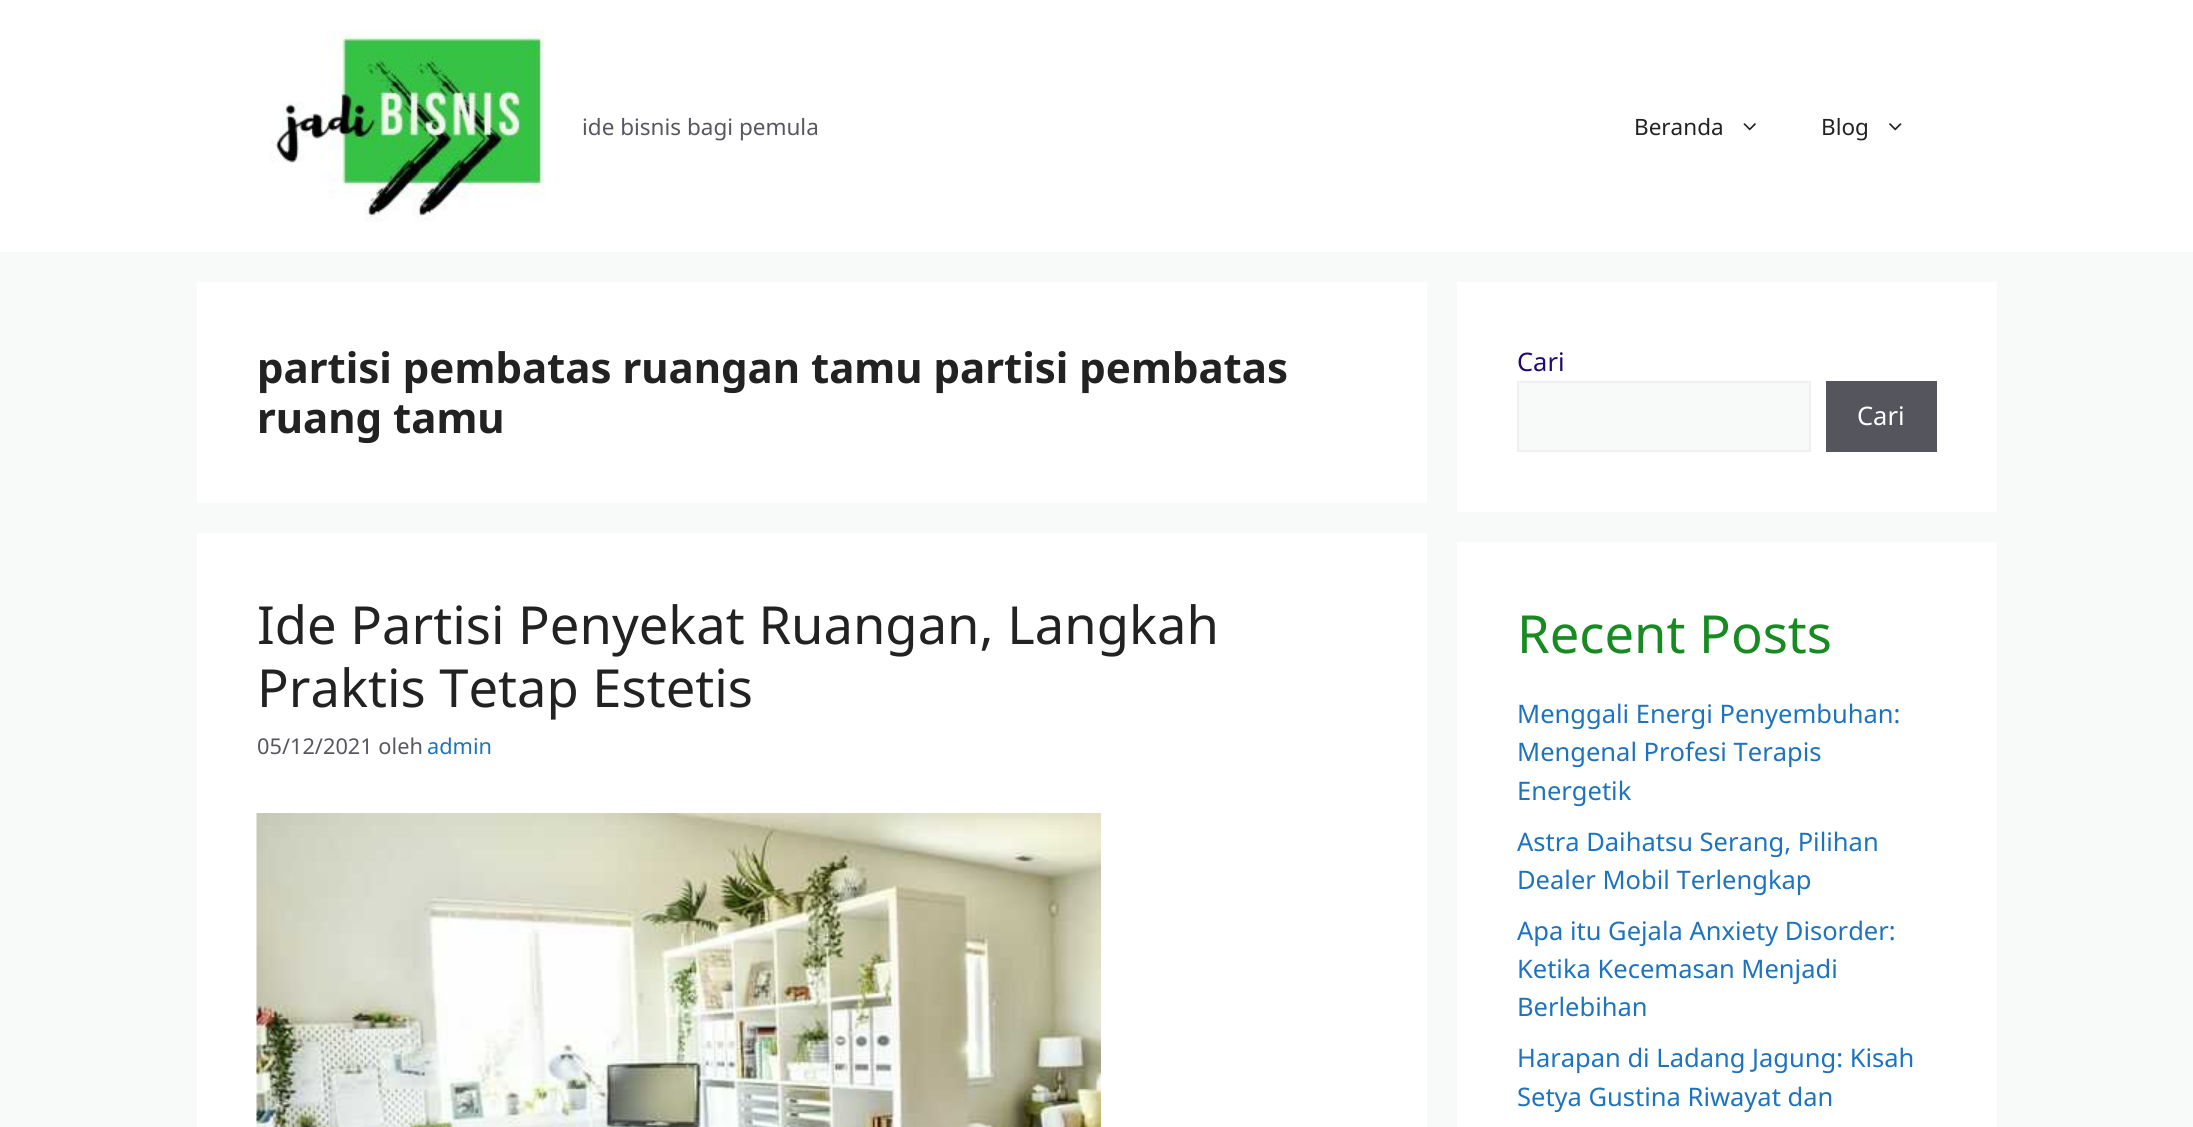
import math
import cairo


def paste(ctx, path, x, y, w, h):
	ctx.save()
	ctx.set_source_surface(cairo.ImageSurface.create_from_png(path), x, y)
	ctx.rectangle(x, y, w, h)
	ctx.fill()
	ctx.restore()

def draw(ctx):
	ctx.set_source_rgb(0.969, 0.973, 0.976)
	ctx.paint()
	ctx.set_source_rgb(1, 1, 1)
	ctx.rectangle(0, 0, 2193, 252)
	ctx.fill()
	paste(ctx, 'media/1.png', 269, 30, 277, 192)
	ctx.select_font_face('Noto Sans')
	ctx.set_font_size(22.5)
	ctx.set_source_rgb(0.341, 0.341, 0.376)
	ctx.move_to(582, 135)
	ctx.show_text('ide bisnis bagi pemula')
	ctx.set_source_rgb(0.133, 0.133, 0.133)
	ctx.move_to(1634, 135)
	ctx.show_text('Beranda')
	paste(ctx, 'media/2.png', 1743, 123, 13, 8)
	ctx.move_to(1821, 135)
	ctx.show_text('Blog')
	paste(ctx, 'media/3.png', 1889, 123, 13, 8)
	ctx.set_source_rgb(1, 1, 1)
	ctx.rectangle(197, 282, 1230, 221)
	ctx.fill()
	ctx.select_font_face('Noto Sans', cairo.FONT_SLANT_NORMAL, cairo.FONT_WEIGHT_BOLD)
	ctx.set_font_size(42)
	ctx.set_source_rgb(0.133, 0.133, 0.133)
	ctx.move_to(257, 383)
	ctx.show_text('partisi pembatas ruangan tamu partisi pembatas')
	ctx.move_to(257, 433)
	ctx.show_text('ruang tamu')
	ctx.set_source_rgb(1, 1, 1)
	ctx.rectangle(197, 533, 1230, 594)
	ctx.fill()
	ctx.select_font_face('Noto Sans')
	ctx.set_font_size(52.5)
	ctx.set_source_rgb(0.133, 0.133, 0.133)
	ctx.move_to(257, 644)
	ctx.show_text('Ide Partisi Penyekat Ruangan, Langkah')
	ctx.move_to(257, 707)
	ctx.show_text('Praktis Tetap Estetis')
	ctx.set_font_size(21.75)
	ctx.set_source_rgb(0.341, 0.341, 0.376)
	ctx.move_to(257, 754)
	ctx.show_text('05/12/2021 oleh')
	ctx.set_source_rgb(0.118, 0.451, 0.745)
	ctx.move_to(427, 754)
	ctx.show_text('admin')
	paste(ctx, 'media/4.png', 256, 813, 845, 314)
	ctx.set_source_rgb(1, 1, 1)
	ctx.rectangle(1457, 282, 540, 230)
	ctx.fill()
	ctx.set_font_size(25.5)
	ctx.set_source_rgb(0.129, 0.039, 0.435)
	ctx.move_to(1517, 371)
	ctx.show_text('Cari')
	ctx.set_source_rgb(0.969, 0.973, 0.976)
	ctx.rectangle(1518, 382, 292, 69)
	ctx.fill_preserve()
	ctx.set_source_rgb(0.941, 0.941, 0.941)
	ctx.stroke()
	ctx.set_source_rgb(0.333, 0.333, 0.369)
	ctx.rectangle(1826, 381, 111, 71)
	ctx.fill()
	ctx.set_source_rgb(1, 1, 1)
	ctx.move_to(1857, 425)
	ctx.show_text('Cari')
	ctx.rectangle(1457, 542, 540, 585)
	ctx.fill()
	ctx.set_font_size(52.5)
	ctx.set_source_rgb(0.09, 0.545, 0.133)
	ctx.move_to(1517, 653)
	ctx.show_text('Recent Posts')
	ctx.set_font_size(25.5)
	ctx.set_source_rgb(0.118, 0.451, 0.745)
	for x, y, s in [
		(1517, 723, 'Menggali Energi Penyembuhan:'),
		(1517, 761, 'Mengenal Profesi Terapis'),
		(1517, 800, 'Energetik'),
		(1517, 851, 'Astra Daihatsu Serang, Pilihan'),
		(1517, 889, 'Dealer Mobil Terlengkap'),
		(1517, 940, 'Apa itu Gejala Anxiety Disorder:'),
		(1517, 978, 'Ketika Kecemasan Menjadi'),
		(1517, 1016, 'Berlebihan'),
		(1517, 1067, 'Harapan di Ladang Jagung: Kisah'),
		(1517, 1106, 'Setya Gustina Riwayat dan'),
	]:
		ctx.move_to(x, y)
		ctx.show_text(s)


surface = cairo.ImageSurface(cairo.FORMAT_RGB24, 2193, 1127)
ctx = cairo.Context(surface)
options = cairo.FontOptions()
options.set_hint_metrics(cairo.HINT_METRICS_OFF)
options.set_hint_style(cairo.HINT_STYLE_NONE)
ctx.set_font_options(options)
ctx.set_miter_limit(4)
draw(ctx)
surface.write_to_png('image.png')
